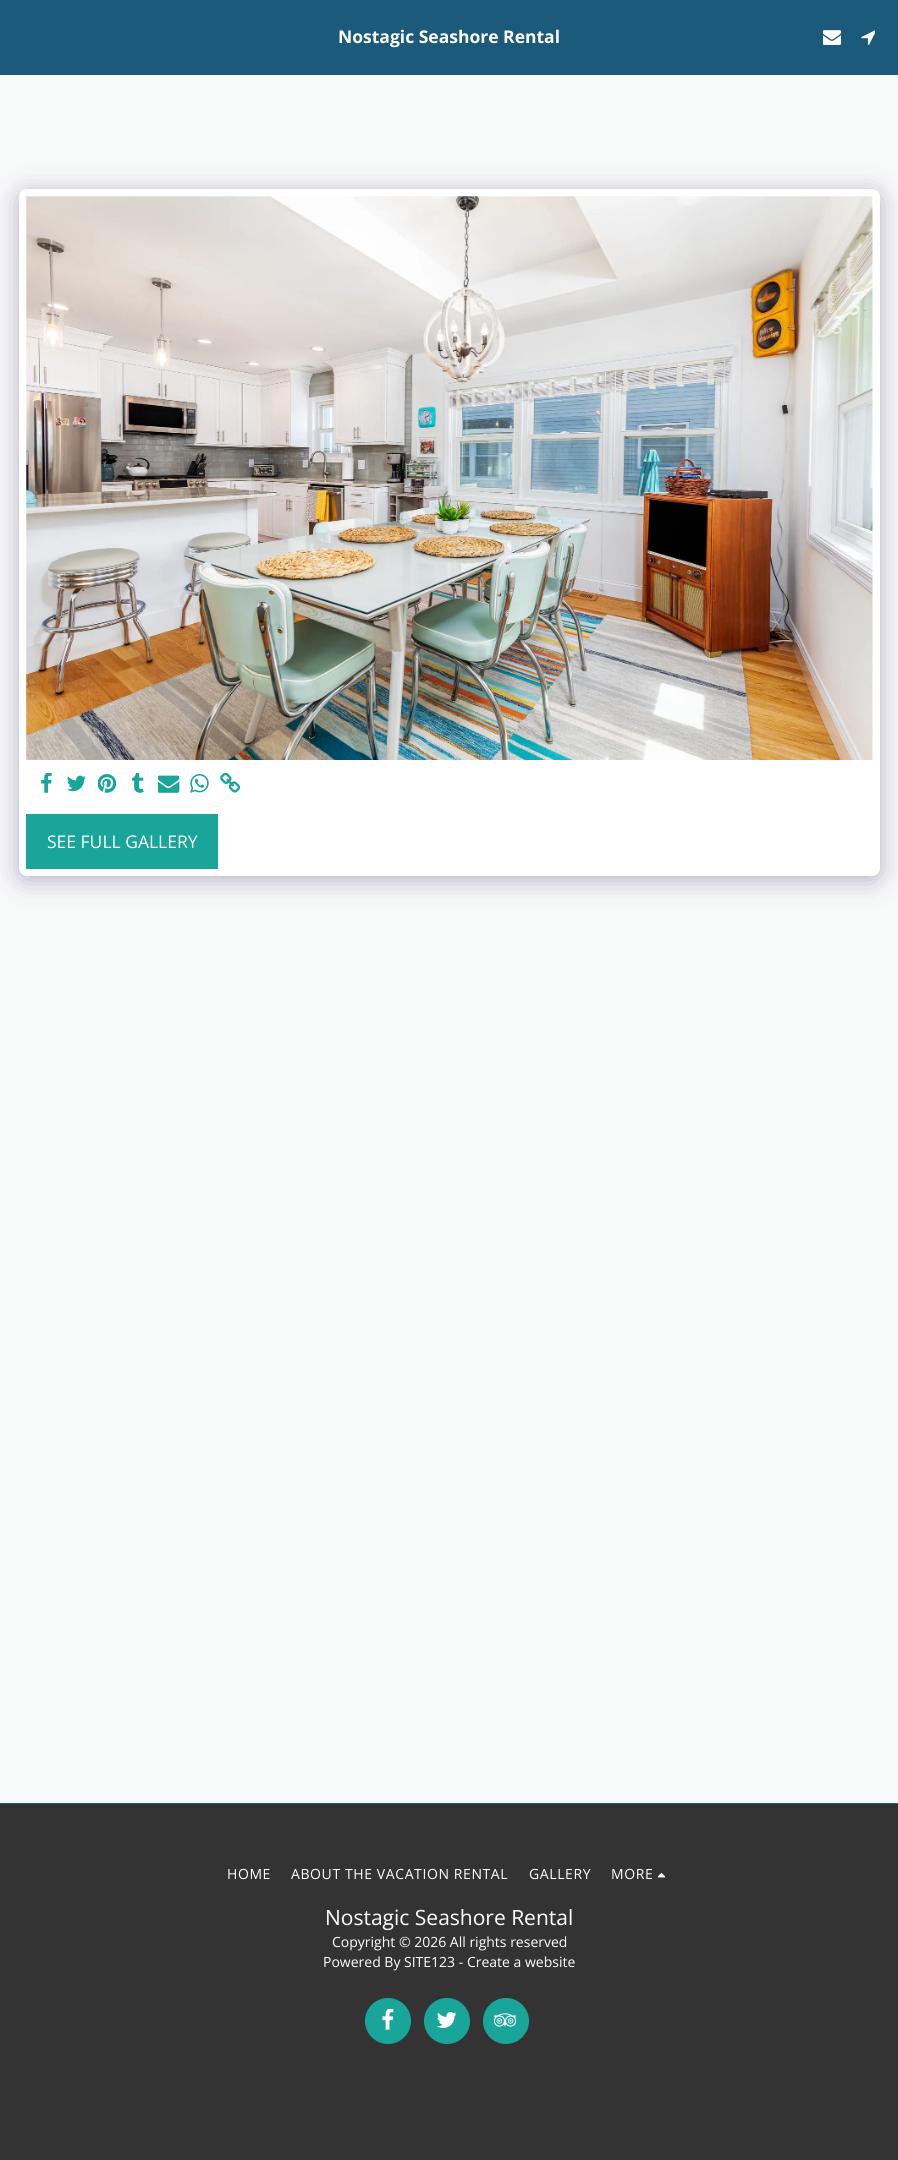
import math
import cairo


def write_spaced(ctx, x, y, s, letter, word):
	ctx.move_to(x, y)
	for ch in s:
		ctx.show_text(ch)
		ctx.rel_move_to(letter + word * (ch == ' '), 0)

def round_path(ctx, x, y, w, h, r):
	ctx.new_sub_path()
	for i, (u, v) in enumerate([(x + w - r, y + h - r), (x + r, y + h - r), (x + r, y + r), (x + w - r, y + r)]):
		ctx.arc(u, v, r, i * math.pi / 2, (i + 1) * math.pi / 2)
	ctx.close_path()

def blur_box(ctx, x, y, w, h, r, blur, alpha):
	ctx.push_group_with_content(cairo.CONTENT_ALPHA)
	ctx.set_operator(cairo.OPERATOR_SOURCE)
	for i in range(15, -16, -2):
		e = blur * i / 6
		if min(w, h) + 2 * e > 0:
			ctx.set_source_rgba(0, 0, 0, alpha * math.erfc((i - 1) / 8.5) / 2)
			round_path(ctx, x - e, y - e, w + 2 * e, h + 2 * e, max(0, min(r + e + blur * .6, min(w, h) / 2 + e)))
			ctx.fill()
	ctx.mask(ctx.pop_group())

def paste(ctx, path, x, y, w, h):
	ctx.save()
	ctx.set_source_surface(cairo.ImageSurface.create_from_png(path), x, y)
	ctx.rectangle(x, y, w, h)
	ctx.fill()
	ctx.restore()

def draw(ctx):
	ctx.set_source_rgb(0.969, 0.976, 0.973)
	ctx.paint()
	ctx.set_source_rgb(0.106, 0.353, 0.478)
	ctx.rectangle(0, 0, 898, 75)
	ctx.fill()
	ctx.select_font_face('Open Sans', cairo.FONT_SLANT_NORMAL, cairo.FONT_WEIGHT_BOLD)
	ctx.set_font_size(17.5)
	ctx.set_source_rgb(1, 1, 1)
	ctx.move_to(338, 43)
	ctx.show_text('Nostagic Seashore Rental')
	paste(ctx, 'media/1.png', 823, 30, 18, 15)
	paste(ctx, 'media/2.png', 861, 30, 14, 15)
	ctx.set_source_rgb(0.302, 0.247, 0.478)
	blur_box(ctx, 19, 193, 861, 687, 8, 12.5, 0.4)
	ctx.set_source_rgb(1, 1, 1)
	round_path(ctx, 19, 189, 861, 687, 8)
	ctx.fill()
	paste(ctx, 'media/3.png', 26, 196, 847, 564)
	paste(ctx, 'media/4.png', 41, 773, 11, 20)
	paste(ctx, 'media/5.png', 67, 775, 19, 17)
	paste(ctx, 'media/6.png', 98, 774, 18, 19)
	paste(ctx, 'media/7.png', 132, 773, 12, 20)
	paste(ctx, 'media/8.png', 158, 775, 22, 18)
	paste(ctx, 'media/9.png', 190, 774, 19, 19)
	paste(ctx, 'media/10.png', 220, 773, 20, 20)
	ctx.set_source_rgb(0.102, 0.647, 0.604)
	ctx.rectangle(26, 814, 192, 55)
	ctx.fill()
	ctx.select_font_face('Open Sans')
	ctx.set_source_rgb(1, 1, 1)
	ctx.move_to(47, 848)
	ctx.show_text('SEE FULL GALLERY')
	ctx.set_source_rgb(0.2, 0.2, 0.2)
	ctx.rectangle(0, 1804, 898, 356)
	ctx.fill()
	ctx.set_source_rgb(0.106, 0.353, 0.478)
	ctx.rectangle(0, 1803, 898, 1)
	ctx.fill()
	ctx.set_font_size(14)
	ctx.set_source_rgb(1, 1, 1)
	for x, y, s in [
		(227, 1879, 'HOME'),
		(291, 1879, 'ABOUT THE VACATION RENTAL'),
		(529, 1879, 'GALLERY'),
		(611, 1879, 'MORE'),
	]:
		write_spaced(ctx, x, y, s, 0.6, 0)
	paste(ctx, 'media/11.png', 658, 1873, 7, 5)
	ctx.set_font_size(21)
	ctx.move_to(325, 1925)
	ctx.show_text('Nostagic Seashore Rental')
	ctx.set_font_size(14)
	ctx.move_to(332, 1947)
	ctx.show_text('Copyright © 2026 All rights reserved')
	ctx.move_to(323, 1967)
	ctx.show_text('Powered By SITE123 - Create a website')
	ctx.set_source_rgb(0.102, 0.647, 0.604)
	ctx.new_path()
	ctx.arc(388, 2021, 22.5, 0, 2 * math.pi)
	ctx.fill_preserve()
	ctx.set_line_width(1)
	ctx.stroke()
	paste(ctx, 'media/12.png', 382, 2009, 12, 21)
	ctx.arc(447, 2021, 22.5, 0, 2 * math.pi)
	ctx.fill_preserve()
	ctx.stroke()
	paste(ctx, 'media/13.png', 437, 2012, 19, 16)
	ctx.arc(506, 2021, 22.5, 0, 2 * math.pi)
	ctx.fill_preserve()
	ctx.stroke()
	paste(ctx, 'media/14.png', 494, 2013, 22, 14)


surface = cairo.ImageSurface(cairo.FORMAT_RGB24, 898, 2160)
ctx = cairo.Context(surface)
options = cairo.FontOptions()
options.set_hint_metrics(cairo.HINT_METRICS_OFF)
options.set_hint_style(cairo.HINT_STYLE_NONE)
ctx.set_font_options(options)
ctx.set_miter_limit(4)
draw(ctx)
surface.write_to_png('image.png')
